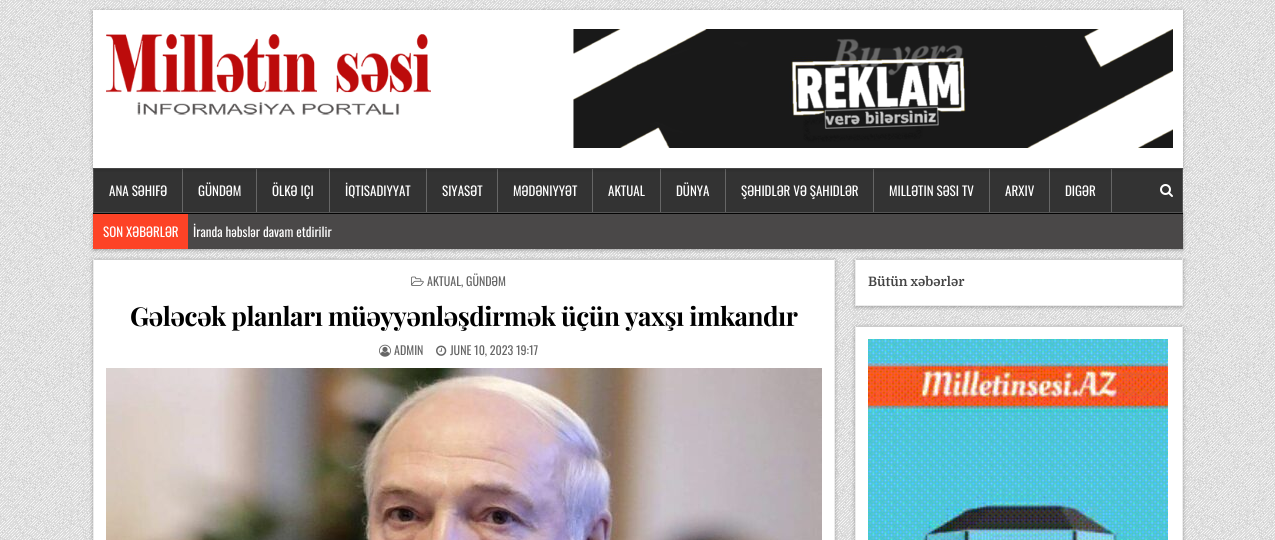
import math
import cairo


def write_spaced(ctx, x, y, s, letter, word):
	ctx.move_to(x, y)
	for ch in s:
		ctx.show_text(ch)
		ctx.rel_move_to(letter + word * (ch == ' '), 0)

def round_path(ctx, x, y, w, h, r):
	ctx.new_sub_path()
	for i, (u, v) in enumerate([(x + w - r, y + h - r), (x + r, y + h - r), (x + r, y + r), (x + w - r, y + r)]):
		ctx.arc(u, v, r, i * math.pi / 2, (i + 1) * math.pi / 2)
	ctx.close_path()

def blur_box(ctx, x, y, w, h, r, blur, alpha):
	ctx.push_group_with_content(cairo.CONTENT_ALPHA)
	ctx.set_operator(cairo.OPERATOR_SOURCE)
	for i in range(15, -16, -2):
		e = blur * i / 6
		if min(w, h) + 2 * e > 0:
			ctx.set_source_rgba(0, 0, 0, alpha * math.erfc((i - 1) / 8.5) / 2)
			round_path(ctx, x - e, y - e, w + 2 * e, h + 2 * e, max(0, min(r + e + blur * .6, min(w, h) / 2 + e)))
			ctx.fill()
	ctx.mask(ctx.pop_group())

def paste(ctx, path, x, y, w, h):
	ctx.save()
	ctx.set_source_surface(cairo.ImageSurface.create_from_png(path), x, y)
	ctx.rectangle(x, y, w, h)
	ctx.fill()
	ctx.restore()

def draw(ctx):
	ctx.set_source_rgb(1, 1, 1)
	ctx.paint()
	paste(ctx, 'media/1.png', 0, 0, 1275, 540)
	ctx.set_source_rgb(0, 0, 0)
	blur_box(ctx, 93, 214, 1090, 36, 0, 2, 0.3)
	ctx.set_source_rgb(0.2, 0.2, 0.2)
	ctx.rectangle(93.5, 168.5, 1089, 44)
	ctx.fill_preserve()
	ctx.set_source_rgb(0.333, 0.333, 0.333)
	ctx.set_line_width(1)
	ctx.stroke()
	ctx.set_source_rgb(0.4, 0.4, 0.4)
	ctx.rectangle(182, 169, 1, 43)
	ctx.rectangle(256, 169, 1, 43)
	ctx.rectangle(329, 169, 1, 43)
	ctx.rectangle(426, 169, 1, 43)
	ctx.rectangle(497, 169, 1, 43)
	ctx.rectangle(592, 169, 1, 43)
	ctx.rectangle(660, 169, 1, 43)
	ctx.rectangle(725, 169, 1, 43)
	ctx.rectangle(873, 169, 1, 43)
	ctx.rectangle(989, 169, 1, 43)
	ctx.rectangle(1049, 169, 1, 43)
	ctx.rectangle(1111, 169, 1, 43)
	ctx.fill()
	ctx.set_source_rgb(0, 0, 0)
	blur_box(ctx, 93, 11, 1090, 158, 0, 2, 0.3)
	ctx.set_source_rgb(1, 1, 1)
	ctx.rectangle(93, 10, 1090, 158)
	ctx.fill()
	paste(ctx, 'media/2.png', 106, 34, 325, 81)
	paste(ctx, 'media/3.png', 573, 29, 600, 119)
	ctx.select_font_face('Oswald')
	ctx.set_font_size(13)
	for x, y, s in [
		(109, 196, 'ANA SƏHIFƏ'),
		(198, 196, 'GÜNDƏM'),
		(272, 196, 'ÖLKƏ IÇI'),
		(345, 196, 'İQTISADIYYAT'),
		(442, 196, 'SIYASƏT'),
		(513, 196, 'MƏDƏNIYYƏT'),
		(608, 196, 'AKTUAL'),
		(676, 196, 'DÜNYA'),
		(741, 196, 'ŞƏHIDLƏR VƏ ŞAHIDLƏR'),
		(889, 196, 'MILLƏTIN SƏSI TV'),
		(1005, 196, 'ARXIV'),
		(1065, 196, 'DIGƏR'),
	]:
		ctx.move_to(x, y)
		ctx.show_text(s)
	paste(ctx, 'media/4.png', 1160, 184, 13, 13)
	ctx.set_source_rgb(0.29, 0.282, 0.282)
	ctx.rectangle(188, 214, 995, 35)
	ctx.fill()
	ctx.set_source_rgb(0.016, 0.016, 0.016)
	ctx.rectangle(93, 213, 1090, 1)
	ctx.fill()
	ctx.set_source_rgb(0.992, 0.263, 0.149)
	ctx.rectangle(93, 214, 95, 35)
	ctx.fill()
	ctx.set_source_rgb(1, 1, 1)
	ctx.move_to(103, 237)
	ctx.show_text('SON XƏBƏRLƏR')
	ctx.move_to(193, 237)
	ctx.show_text('İranda həbslər davam etdirilir')
	ctx.set_source_rgb(0, 0, 0)
	blur_box(ctx, 93, 260, 742, 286, 0, 2, 0.3)
	ctx.set_source_rgb(1, 1, 1)
	ctx.rectangle(94, 260, 740, 280)
	ctx.fill()
	ctx.set_source_rgb(0.8, 0.8, 0.8)
	ctx.rectangle(93, 259, 742, 1)
	ctx.fill()
	ctx.set_source_rgb(0.925, 0.925, 0.925)
	ctx.rectangle(834, 259, 1, 281)
	ctx.rectangle(93, 259, 1, 281)
	ctx.fill()
	paste(ctx, 'media/5.png', 411, 276, 13, 10)
	ctx.set_font_size(12)
	ctx.set_source_rgb(0.4, 0.4, 0.4)
	ctx.move_to(427, 286)
	ctx.show_text('AKTUAL, GÜNDƏM')
	ctx.select_font_face('Playfair Display', cairo.FONT_SLANT_NORMAL, cairo.FONT_WEIGHT_BOLD)
	ctx.set_font_size(26)
	ctx.set_source_rgb(0, 0, 0)
	write_spaced(ctx, 130, 326, 'Gələcək planları müəyyənləşdirmək üçün yaxşı imkandır', -0.5, 0)
	paste(ctx, 'media/6.png', 379, 344, 12, 13)
	ctx.select_font_face('Oswald')
	ctx.set_font_size(12)
	ctx.set_source_rgb(0.4, 0.4, 0.4)
	ctx.move_to(394, 355)
	ctx.show_text('ADMIN')
	paste(ctx, 'media/7.png', 436, 345, 11, 11)
	ctx.move_to(450, 355)
	ctx.show_text('JUNE 10, 2023 19:17')
	paste(ctx, 'media/8.png', 106, 368, 716, 172)
	ctx.set_source_rgb(0, 0, 0)
	blur_box(ctx, 855, 260, 328, 47, 0, 2, 0.3)
	ctx.set_source_rgb(1, 1, 1)
	ctx.rectangle(856, 260, 326, 45)
	ctx.fill()
	ctx.set_source_rgb(0.8, 0.8, 0.8)
	ctx.rectangle(855, 259, 328, 1)
	ctx.fill()
	ctx.set_source_rgb(0.925, 0.925, 0.925)
	ctx.rectangle(1182, 259, 1, 47)
	ctx.rectangle(855, 305, 328, 1)
	ctx.rectangle(855, 259, 1, 47)
	ctx.fill()
	ctx.select_font_face('Domine', cairo.FONT_SLANT_NORMAL, cairo.FONT_WEIGHT_BOLD)
	ctx.set_font_size(13)
	ctx.set_source_rgb(0.267, 0.267, 0.267)
	ctx.move_to(868, 286)
	ctx.show_text('Bütün xəbərlər')
	ctx.set_source_rgb(0, 0, 0)
	blur_box(ctx, 855, 327, 328, 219, 0, 2, 0.3)
	ctx.set_source_rgb(1, 1, 1)
	ctx.rectangle(856, 327, 326, 213)
	ctx.fill()
	ctx.set_source_rgb(0.8, 0.8, 0.8)
	ctx.rectangle(855, 326, 328, 1)
	ctx.fill()
	ctx.set_source_rgb(0.925, 0.925, 0.925)
	ctx.rectangle(1182, 326, 1, 214)
	ctx.rectangle(855, 326, 1, 214)
	ctx.fill()
	paste(ctx, 'media/9.png', 868, 339, 300, 201)


surface = cairo.ImageSurface(cairo.FORMAT_RGB24, 1275, 540)
ctx = cairo.Context(surface)
options = cairo.FontOptions()
options.set_hint_metrics(cairo.HINT_METRICS_OFF)
options.set_hint_style(cairo.HINT_STYLE_NONE)
ctx.set_font_options(options)
ctx.set_miter_limit(4)
draw(ctx)
surface.write_to_png('image.png')
